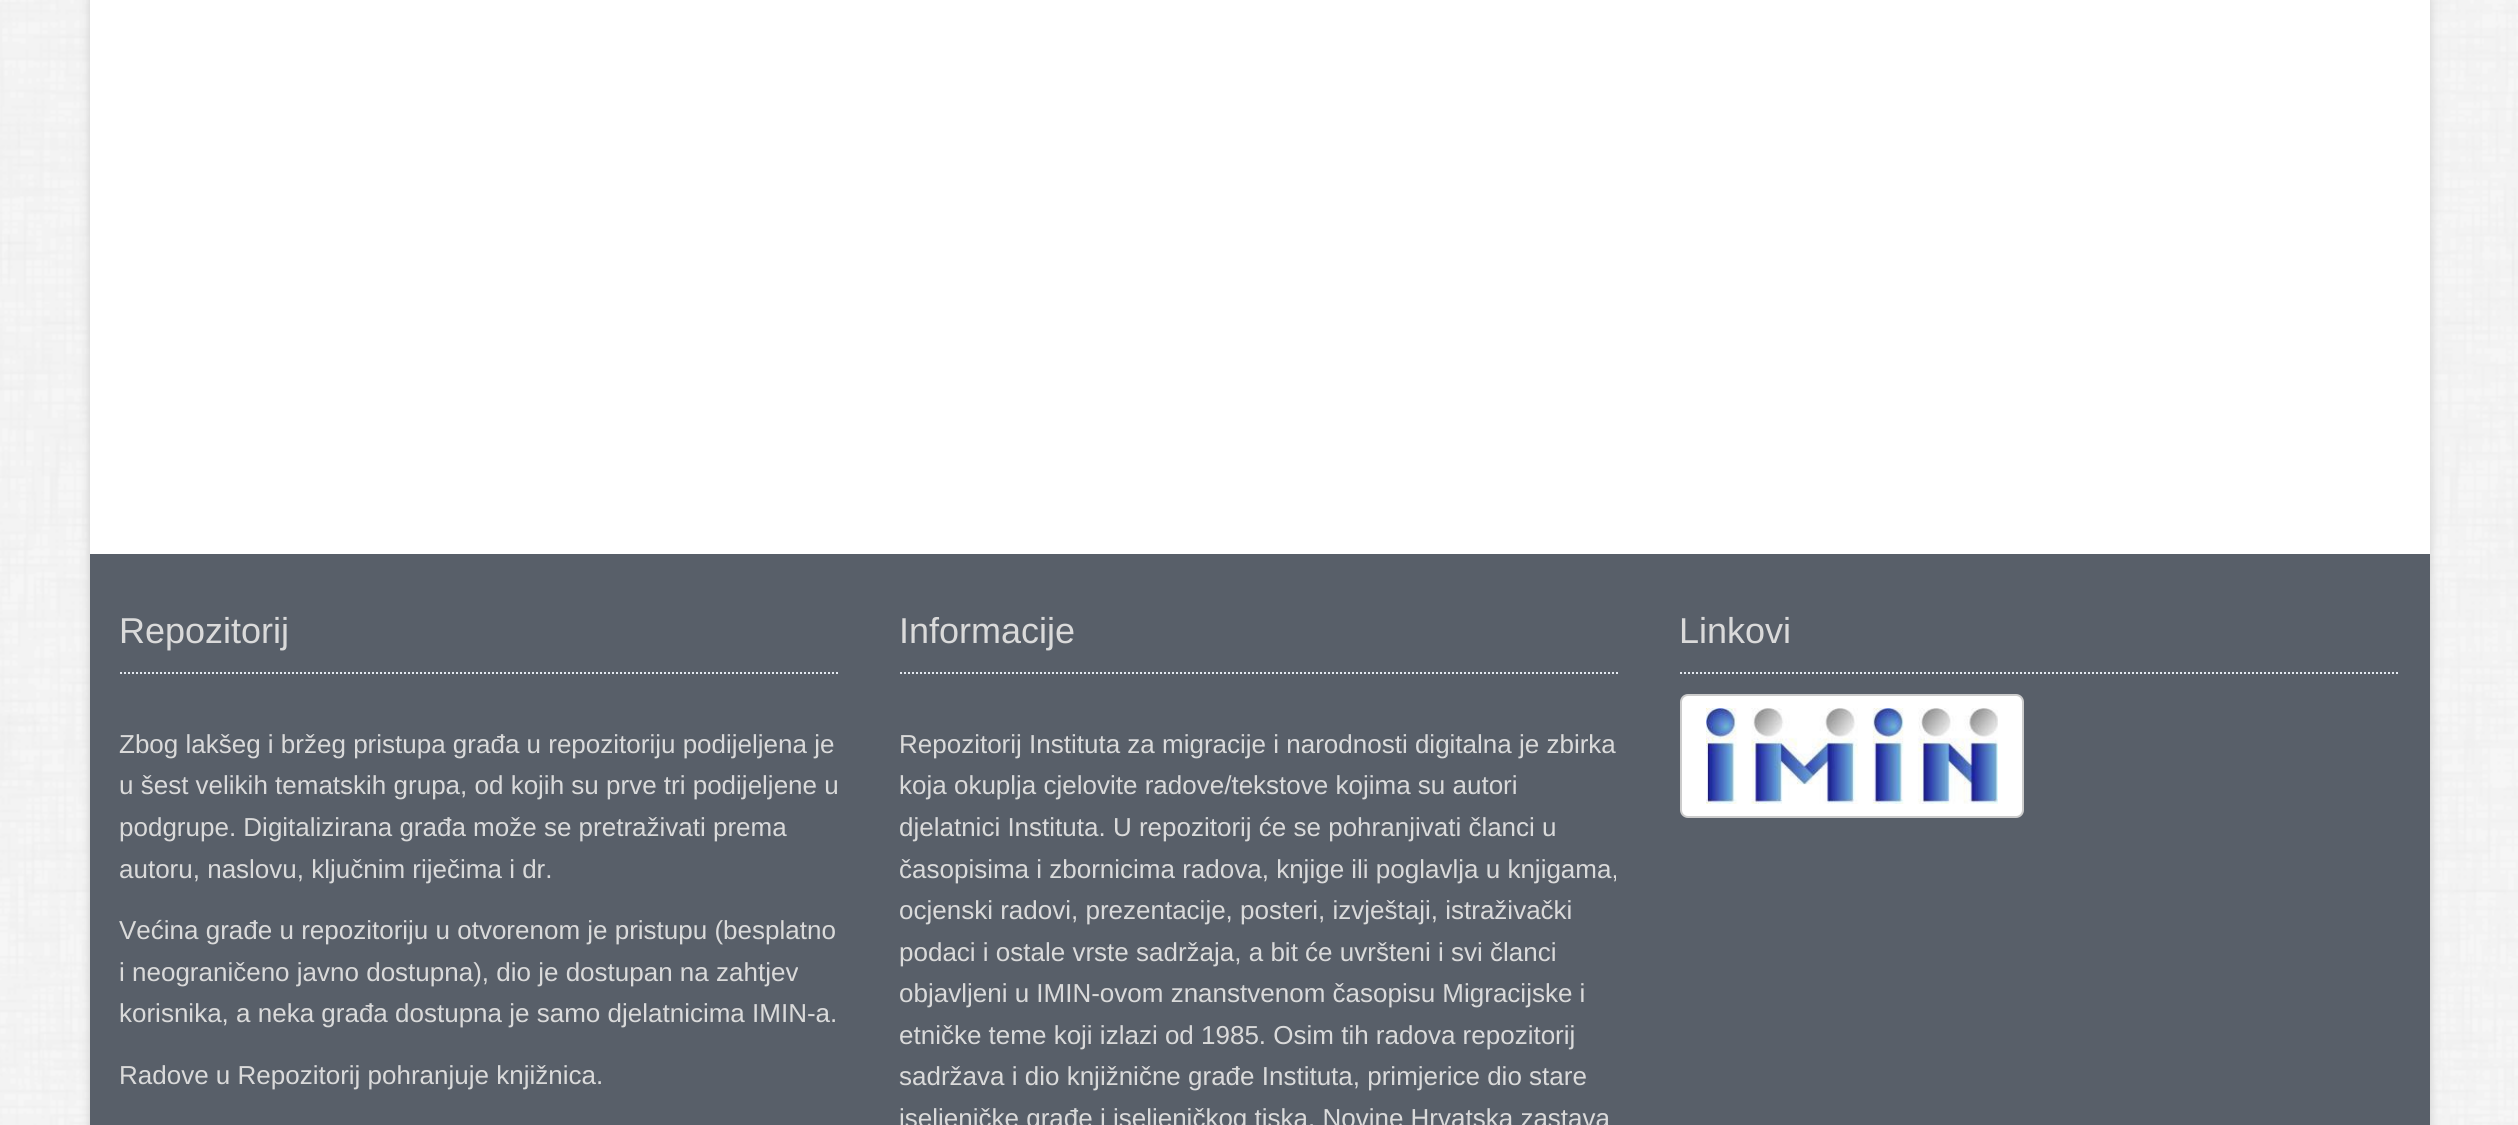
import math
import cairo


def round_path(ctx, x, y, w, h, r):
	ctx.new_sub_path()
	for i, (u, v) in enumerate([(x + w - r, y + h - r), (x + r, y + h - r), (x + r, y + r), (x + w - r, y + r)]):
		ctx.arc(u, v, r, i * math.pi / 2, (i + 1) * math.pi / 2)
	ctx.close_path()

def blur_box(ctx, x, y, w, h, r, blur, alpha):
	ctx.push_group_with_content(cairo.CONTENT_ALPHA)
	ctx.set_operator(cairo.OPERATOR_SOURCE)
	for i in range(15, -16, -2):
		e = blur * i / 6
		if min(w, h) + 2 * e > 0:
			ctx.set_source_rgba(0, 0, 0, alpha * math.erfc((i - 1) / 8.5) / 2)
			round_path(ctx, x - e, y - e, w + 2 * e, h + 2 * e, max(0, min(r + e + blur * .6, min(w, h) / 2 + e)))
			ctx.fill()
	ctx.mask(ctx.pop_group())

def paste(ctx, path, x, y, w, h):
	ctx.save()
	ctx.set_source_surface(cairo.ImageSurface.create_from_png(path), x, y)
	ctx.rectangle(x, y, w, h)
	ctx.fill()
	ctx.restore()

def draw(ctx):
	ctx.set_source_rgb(1, 1, 1)
	ctx.paint()
	paste(ctx, 'media/1.png', 0, 0, 2518, 1125)
	ctx.set_source_rgb(0.8, 0.8, 0.8)
	blur_box(ctx, 90, -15, 2340, 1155, 0, 5, 1)
	ctx.set_source_rgb(1, 1, 1)
	ctx.rectangle(90, 0, 2340, 554)
	ctx.fill()
	ctx.set_source_rgb(0.345, 0.373, 0.412)
	ctx.rectangle(90, 554, 2340, 571)
	ctx.fill()
	ctx.new_path()
	ctx.move_to(120, 673)
	ctx.line_to(840, 673)
	ctx.set_source_rgb(0.894, 0.914, 0.941)
	ctx.set_dash([2, 2])
	ctx.stroke()
	ctx.select_font_face('Liberation Sans')
	ctx.set_font_size(36)
	ctx.set_source_rgb(0.855, 0.855, 0.855)
	ctx.move_to(119, 643)
	ctx.show_text('Repozitorij')
	ctx.set_font_size(26)
	for x, y, s in [
		(119, 753, 'Zbog lakšeg i bržeg pristupa građa u repozitoriju podijeljena je'),
		(119, 794, 'u šest velikih tematskih grupa, od kojih su prve tri podijeljene u'),
		(119, 836, 'podgrupe. Digitalizirana građa može se pretraživati prema'),
		(119, 878, 'autoru, naslovu, ključnim riječima i dr.'),
		(119, 939, 'Većina građe u repozitoriju u otvorenom je pristupu (besplatno'),
		(119, 981, 'i neograničeno javno dostupna), dio je dostupan na zahtjev'),
		(119, 1022, 'korisnika, a neka građa dostupna je samo djelatnicima IMIN-a.'),
		(119, 1084, 'Radove u Repozitorij pohranjuje knjižnica.'),
	]:
		ctx.move_to(x, y)
		ctx.show_text(s)
	ctx.new_path()
	ctx.move_to(900, 673)
	ctx.line_to(1620, 673)
	ctx.set_source_rgb(0.894, 0.914, 0.941)
	ctx.stroke()
	ctx.set_font_size(36)
	ctx.set_source_rgb(0.855, 0.855, 0.855)
	ctx.move_to(899, 643)
	ctx.show_text('Informacije')
	ctx.set_font_size(26)
	for x, y, s in [
		(899, 753, 'Repozitorij Instituta za migracije i narodnosti digitalna je zbirka'),
		(899, 794, 'koja okuplja cjelovite radove/tekstove kojima su autori'),
		(899, 836, 'djelatnici Instituta. U repozitorij će se pohranjivati članci u'),
		(899, 878, 'časopisima i zbornicima radova, knjige ili poglavlja u knjigama,'),
		(899, 919, 'ocjenski radovi, prezentacije, posteri, izvještaji, istraživački'),
		(899, 961, 'podaci i ostale vrste sadržaja, a bit će uvršteni i svi članci'),
		(899, 1002, 'objavljeni u IMIN-ovom znanstvenom časopisu Migracijske i'),
		(899, 1044, 'etničke teme koji izlazi od 1985. Osim tih radova repozitorij'),
		(899, 1085, 'sadržava i dio knjižnične građe Instituta, primjerice dio stare'),
		(899, 1127, 'iseljeničke građe i iseljeničkog tiska. Novine Hrvatska zastava'),
	]:
		ctx.move_to(x, y)
		ctx.show_text(s)
	ctx.new_path()
	ctx.move_to(1680, 673)
	ctx.line_to(2400, 673)
	ctx.set_source_rgb(0.894, 0.914, 0.941)
	ctx.stroke()
	ctx.set_font_size(36)
	ctx.set_source_rgb(0.855, 0.855, 0.855)
	ctx.move_to(1679, 643)
	ctx.show_text('Linkovi')
	ctx.set_source_rgb(1, 1, 1)
	round_path(ctx, 1681, 695, 342, 122, 7)
	ctx.fill_preserve()
	ctx.set_source_rgb(0.8, 0.8, 0.8)
	ctx.set_dash([])
	ctx.stroke()
	paste(ctx, 'media/2.png', 1706, 708, 292, 96)


surface = cairo.ImageSurface(cairo.FORMAT_RGB24, 2518, 1125)
ctx = cairo.Context(surface)
options = cairo.FontOptions()
options.set_hint_metrics(cairo.HINT_METRICS_OFF)
options.set_hint_style(cairo.HINT_STYLE_NONE)
ctx.set_font_options(options)
ctx.set_miter_limit(4)
draw(ctx)
surface.write_to_png('image.png')
